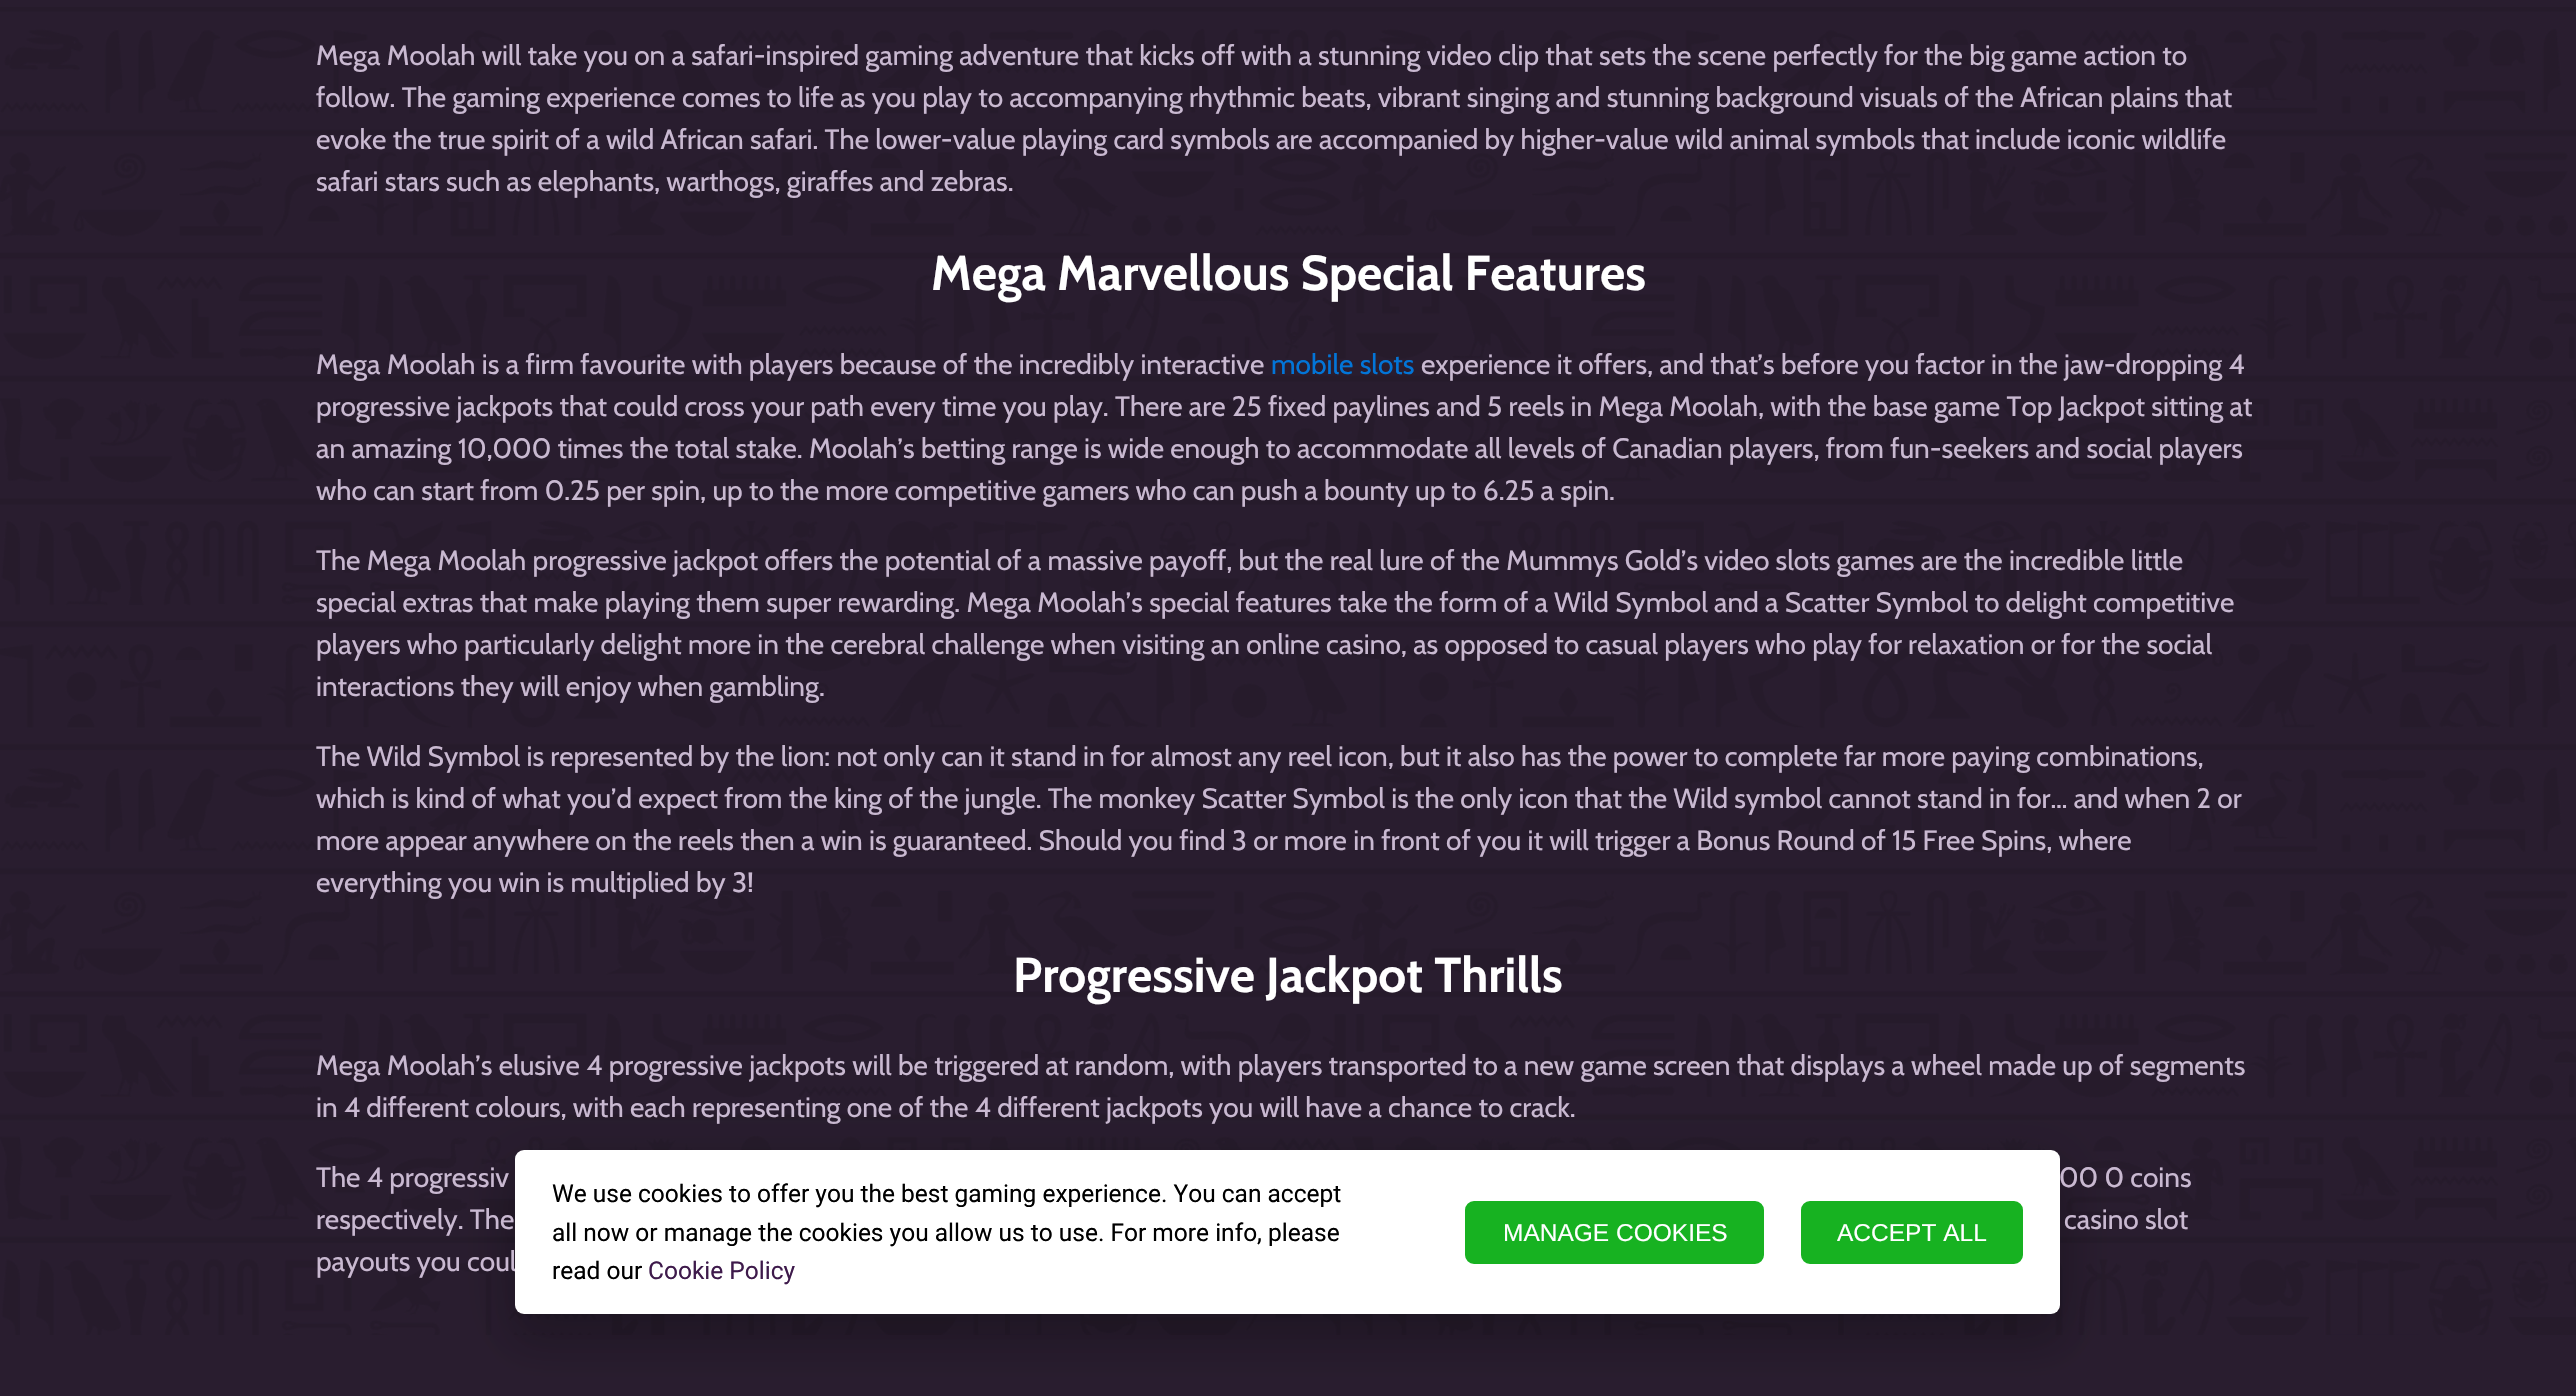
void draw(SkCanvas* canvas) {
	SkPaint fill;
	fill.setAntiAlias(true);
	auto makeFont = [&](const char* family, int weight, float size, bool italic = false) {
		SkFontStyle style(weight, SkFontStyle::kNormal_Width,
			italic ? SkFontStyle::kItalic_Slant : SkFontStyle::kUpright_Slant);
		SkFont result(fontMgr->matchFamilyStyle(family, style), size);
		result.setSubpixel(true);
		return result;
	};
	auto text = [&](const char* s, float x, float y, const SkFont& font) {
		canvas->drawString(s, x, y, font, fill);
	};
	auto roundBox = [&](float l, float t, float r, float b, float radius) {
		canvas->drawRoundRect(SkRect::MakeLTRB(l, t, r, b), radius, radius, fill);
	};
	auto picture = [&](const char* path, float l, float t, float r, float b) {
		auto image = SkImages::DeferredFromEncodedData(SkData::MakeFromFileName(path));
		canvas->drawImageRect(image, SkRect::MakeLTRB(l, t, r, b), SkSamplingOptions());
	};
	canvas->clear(0xFF291D2F);
	picture("image0.png", 0, 7, 2576, 1335);
	fill.setColor(0x1F000000);
	fill.setMaskFilter(SkMaskFilter::MakeBlur(kNormal_SkBlurStyle, 26));
	canvas->drawRoundRect(SkRect::MakeLTRB(506, 1152, 2069, 1334), 18, 18, fill);
	fill.setMaskFilter(nullptr);
	fill.setColor(0x24000000);
	fill.setMaskFilter(SkMaskFilter::MakeBlur(kNormal_SkBlurStyle, 21));
	canvas->drawRoundRect(SkRect::MakeLTRB(511, 1174, 2063, 1346), 12, 12, fill);
	fill.setMaskFilter(nullptr);
	auto font1 = makeFont("Cabin", 400, 28);
	fill.setColor(0xFFC9B9D1);
	text("Mega Moolah will take you on a safari-inspired gaming adventure that kicks off with a stunning video clip that sets the scene perfectly for the big game action to", 316, 65, font1);
	text("follow. The gaming experience comes to life as you play to accompanying rhythmic beats, vibrant singing and stunning background visuals of the African plains that", 316, 107, font1);
	text("evoke the true spirit of a wild African safari. The lower-value playing card symbols are accompanied by higher-value wild animal symbols that include iconic wildlife", 316, 149, font1);
	text("safari stars such as elephants, warthogs, giraffes and zebras.", 316, 191, font1);
	auto font2 = makeFont("Cabin", 700, 49);
	fill.setColor(0xFFFFFFFF);
	text("Mega Marvellous Special Features", 931, 290, font2);
	fill.setColor(0xFFC9B9D1);
	text("Mega Moolah is a firm favourite with players because of the incredibly interactive", 316, 374, font1);
	fill.setColor(0xFF0275D8);
	text("mobile slots", 1271, 374, font1);
	fill.setColor(0xFFC9B9D1);
	text("experience it offers, and that’s before you factor in the jaw-dropping 4", 1421, 374, font1);
	text("progressive jackpots that could cross your path every time you play. There are 25 fixed paylines and 5 reels in Mega Moolah, with the base game Top Jackpot sitting at", 316, 416, font1);
	text("an amazing 10,000 times the total stake. Moolah’s betting range is wide enough to accommodate all levels of Canadian players, from fun-seekers and social players", 316, 458, font1);
	text("who can start from 0.25 per spin, up to the more competitive gamers who can push a bounty up to 6.25 a spin.", 316, 500, font1);
	text("The Mega Moolah progressive jackpot offers the potential of a massive payoff, but the real lure of the Mummys Gold’s video slots games are the incredible little", 316, 570, font1);
	text("special extras that make playing them super rewarding. Mega Moolah’s special features take the form of a Wild Symbol and a Scatter Symbol to delight competitive", 316, 612, font1);
	text("players who particularly delight more in the cerebral challenge when visiting an online casino, as opposed to casual players who play for relaxation or for the social", 316, 654, font1);
	text("interactions they will enjoy when gambling.", 316, 696, font1);
	text("The Wild Symbol is represented by the lion: not only can it stand in for almost any reel icon, but it also has the power to complete far more paying combinations,", 316, 766, font1);
	text("which is kind of what you’d expect from the king of the jungle. The monkey Scatter Symbol is the only icon that the Wild symbol cannot stand in for… and when 2 or", 316, 808, font1);
	text("more appear anywhere on the reels then a win is guaranteed. Should you find 3 or more in front of you it will trigger a Bonus Round of 15 Free Spins, where", 316, 850, font1);
	text("everything you win is multiplied by 3!", 316, 892, font1);
	fill.setColor(0xFFFFFFFF);
	text("Progressive Jackpot Thrills", 1013, 992, font2);
	fill.setColor(0xFFC9B9D1);
	text("Mega Moolah’s elusive 4 progressive jackpots will be triggered at random, with players transported to a new game screen that displays a wheel made up of segments", 316, 1075, font1);
	text("in 4 different colours, with each representing one of the 4 different jackpots you will have a chance to crack.", 316, 1117, font1);
	text("The 4 progressiv", 316, 1187, font1);
	text("00 0 coins", 2059, 1187, font1);
	text("respectively. The", 316, 1229, font1);
	text("casino slot", 2064, 1229, font1);
	text("payouts you coul", 316, 1271, font1);
	fill.setColor(0xFFFFFFFF);
	roundBox(515, 1150, 2060, 1314, 9);
	auto font3 = makeFont("Roboto", 400, 24.5f);
	fill.setColor(0xFF000000);
	text("We use cookies to offer you the best gaming experience. You can accept", 552, 1202, font3);
	text("all now or manage the cookies you allow us to use. For more info, please", 552, 1241, font3);
	text("read our", 552, 1279, font3);
	fill.setColor(0xFF3E1A4B);
	text("Cookie Policy", 648, 1279, font3);
	fill.setColor(0xFF17B221);
	canvas->drawRoundRect(SkRect::MakeLTRB(1466, 1202, 1763, 1263), 8, 8, fill);
	fill.setStyle(SkPaint::kStroke_Style);
	fill.setStrokeWidth(2);
	canvas->drawRoundRect(SkRect::MakeLTRB(1466, 1202, 1763, 1263), 8, 8, fill);
	auto font4 = makeFont("Liberation Sans", 400, 24.5f);
	fill.setStyle(SkPaint::kFill_Style);
	fill.setColor(0xFFFFFFFF);
	text("MANAGE COOKIES", 1503, 1241, font4);
	fill.setColor(0xFF17B221);
	canvas->drawRoundRect(SkRect::MakeLTRB(1802, 1202, 2022, 1263), 8, 8, fill);
	fill.setStyle(SkPaint::kStroke_Style);
	canvas->drawRoundRect(SkRect::MakeLTRB(1802, 1202, 2022, 1263), 8, 8, fill);
	fill.setStyle(SkPaint::kFill_Style);
	fill.setColor(0xFFFFFFFF);
	text("ACCEPT ALL", 1837, 1241, font4);
}
